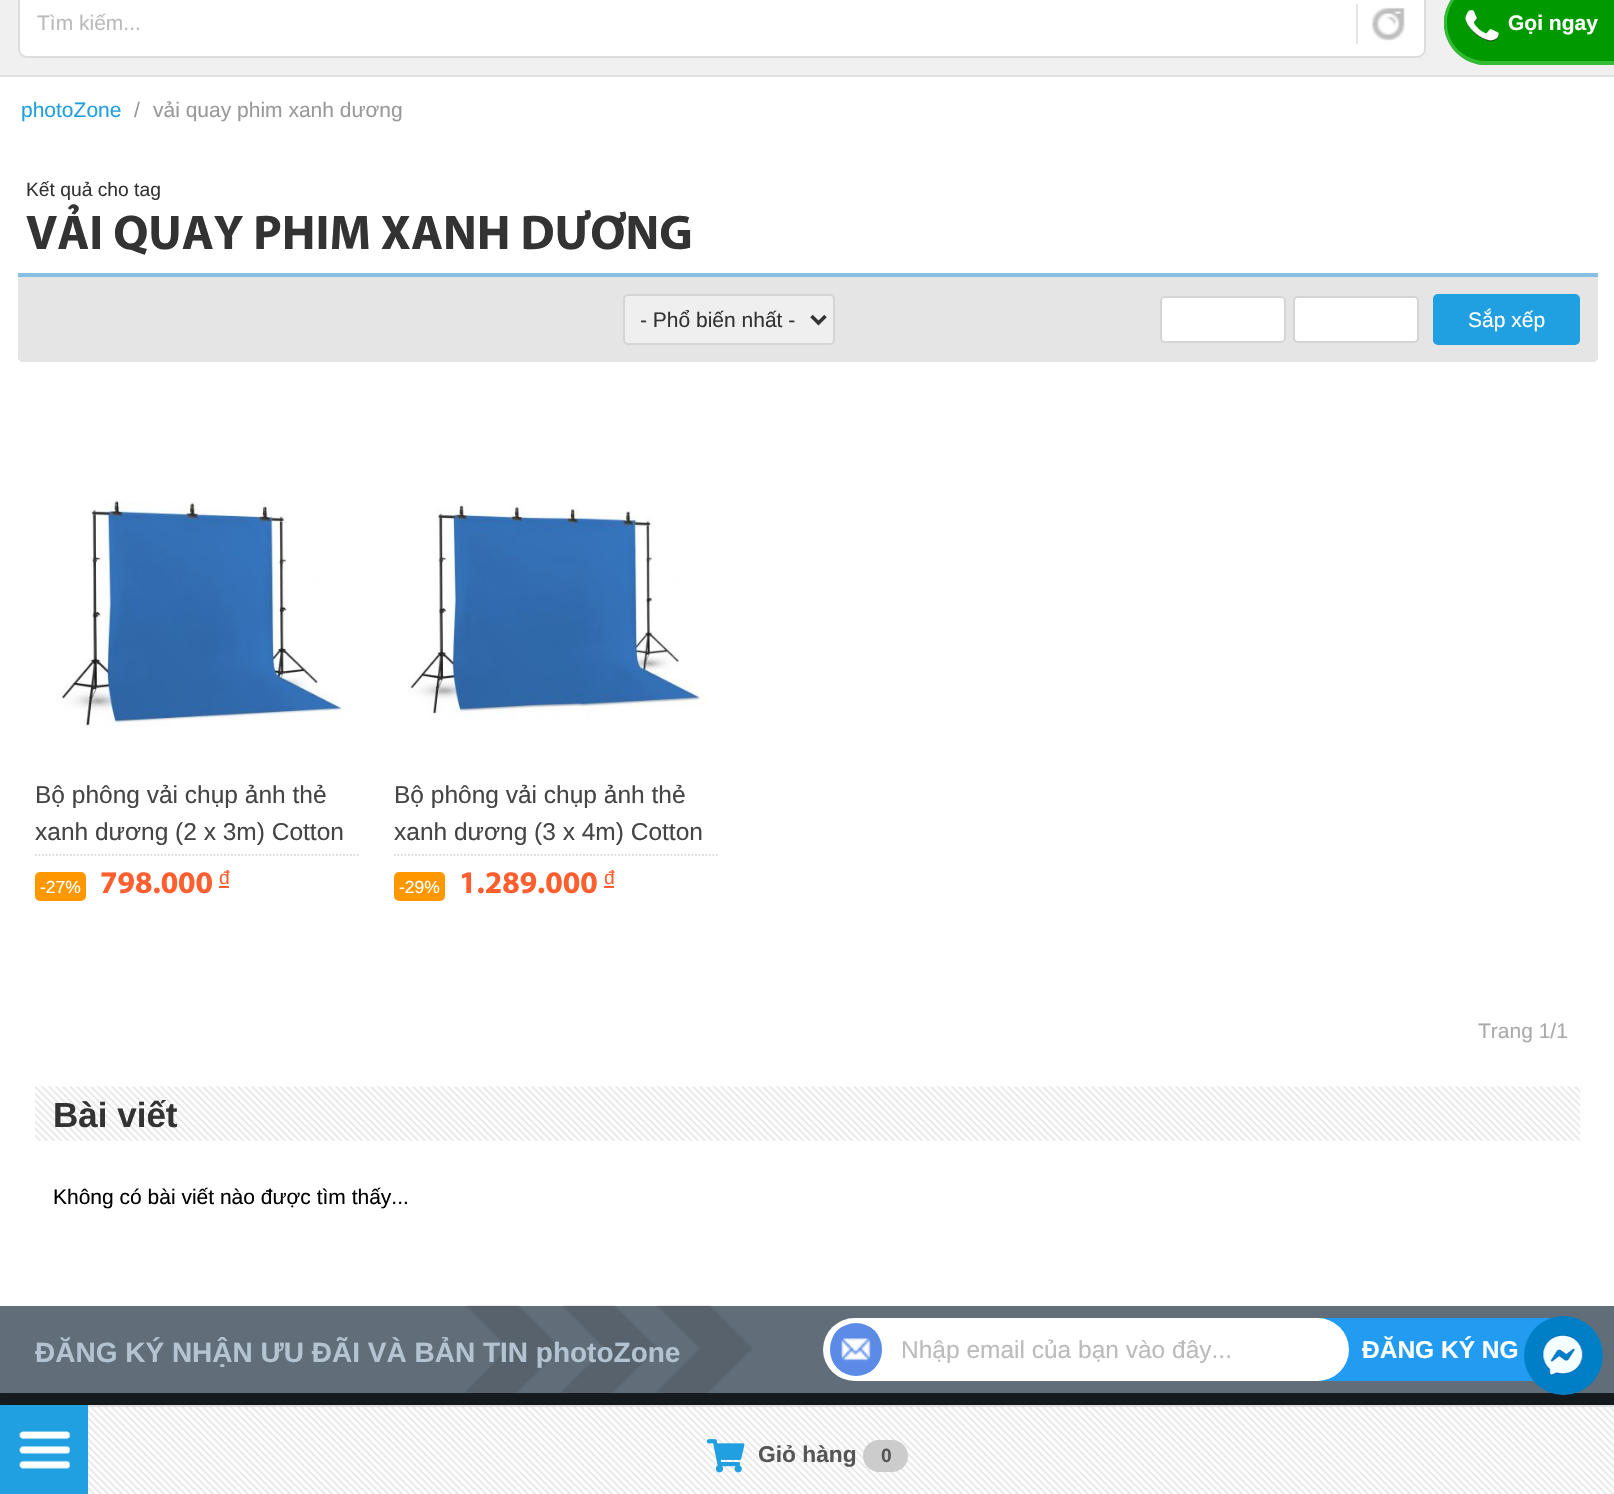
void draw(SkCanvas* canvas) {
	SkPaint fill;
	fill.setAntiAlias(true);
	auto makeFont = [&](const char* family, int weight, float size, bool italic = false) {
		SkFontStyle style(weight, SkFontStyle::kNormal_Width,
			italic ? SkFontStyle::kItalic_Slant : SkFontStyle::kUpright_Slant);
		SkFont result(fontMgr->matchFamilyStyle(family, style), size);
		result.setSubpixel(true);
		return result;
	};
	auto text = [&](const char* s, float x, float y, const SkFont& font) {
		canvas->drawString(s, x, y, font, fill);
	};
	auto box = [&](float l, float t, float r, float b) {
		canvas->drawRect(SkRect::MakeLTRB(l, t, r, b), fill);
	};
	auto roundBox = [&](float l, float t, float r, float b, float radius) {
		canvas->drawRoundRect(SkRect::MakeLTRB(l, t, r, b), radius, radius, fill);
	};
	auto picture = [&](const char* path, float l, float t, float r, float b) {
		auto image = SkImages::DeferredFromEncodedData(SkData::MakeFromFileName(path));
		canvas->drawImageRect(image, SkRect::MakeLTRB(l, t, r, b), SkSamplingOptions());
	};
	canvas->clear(0xFFFFFFFF);
	fill.setColor(0xFFF0F0F0);
	box(0, 0, 1614, 75);
	fill.setColor(0xFFE0E0E0);
	box(0, 75, 1614, 77);
	fill.setColor(0xFFFFFFFF);
	canvas->drawRoundRect(SkRect::MakeLTRB(19, -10, 1425, 57), 8, 8, fill);
	fill.setStyle(SkPaint::kStroke_Style);
	fill.setStrokeWidth(2);
	fill.setColor(0xFFDDDDDD);
	canvas->drawRoundRect(SkRect::MakeLTRB(19, -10, 1425, 57), 8, 8, fill);
	fill.setStyle(SkPaint::kFill_Style);
	fill.setColor(0xFFE5E5E5);
	box(1356, 4, 1358, 44);
	picture("image0.png", 1371, 7, 1405, 41);
	fill.setColor(0xFF161B1F);
	box(0, 1393, 1614, 1405);
	fill.setColor(0xFF616D78);
	box(0, 1306, 1614, 1393);
	picture("image8.png", 465, 1305, 752, 1393);
	fill.setColor(0xFF229CF1);
	canvas->drawPath(SkPathBuilder().moveTo(1300, 1318).lineTo(1566.5f, 1318).cubicTo(1584, 1318, 1598, 1332, 1598, 1349.5f).cubicTo(1598, 1367, 1584, 1381, 1566.5f, 1381).lineTo(1300, 1381).close().detach(), fill);
	fill.setColor(0xFF007EC6);
	canvas->drawCircle(1563.5f, 1355.5f, 39.5f, fill);
	fill.setColor(0x26000000);
	fill.setMaskFilter(SkMaskFilter::MakeBlur(kNormal_SkBlurStyle, 7));
	canvas->drawRect(SkRect::MakeLTRB(0, 1405, 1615, 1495), fill);
	fill.setMaskFilter(nullptr);
	fill.setColor(0xFFFFFFFF);
	box(88, 1407, 1614, 1494);
	picture("image1.png", 88, 1407, 1614, 1494);
	fill.setColor(0xFFE0E0E0);
	box(88, 1405, 1614, 1407);
	picture("image2.png", 707, 1439, 745, 1473);
	fill.setColor(0xFFCCCCCC);
	roundBox(863, 1440, 908, 1472, 16);
	fill.setColor(0xFF009900);
	canvas->drawPath(SkPathBuilder().moveTo(1486, -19).lineTo(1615, -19).lineTo(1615, 65).lineTo(1486, 65).cubicTo(1463, 65, 1444, 46, 1444, 23).cubicTo(1444, 0, 1463, -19, 1486, -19).close().detach(), fill);
	picture("image3.png", 1465, 10, 1499, 42);
	fill.setColor(0xFF33BB33);
	canvas->drawPath(SkPathBuilder(SkPathFillType::kEvenOdd).moveTo(1486, -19).lineTo(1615, -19).lineTo(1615, 65).lineTo(1486, 65).cubicTo(1463, 65, 1444, 46, 1444, 23).cubicTo(1444, 0, 1463, -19, 1486, -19).close().moveTo(1486, -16).lineTo(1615, -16).lineTo(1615, 61).lineTo(1486, 61).cubicTo(1464, 61, 1447, 44, 1447, 23).cubicTo(1447, 1, 1464, -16, 1486, -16).close().detach(), fill);
	fill.setColor(0xFF209FE1);
	box(0, 1405, 88, 1494);
	picture("image4.png", 19, 1431, 70, 1469);
	fill.setColor(0xFF87BEE4);
	box(18, 273, 1598, 277);
	fill.setColor(0xFFE5E5E5);
	canvas->drawPath(SkPathBuilder().moveTo(18, 277).lineTo(1598, 277).lineTo(1598, 357).cubicTo(1598, 360, 1596, 362, 1593, 362).lineTo(23, 362).cubicTo(20, 362, 18, 360, 18, 357).close().detach(), fill);
	fill.setColor(0xFFEFEFEF);
	canvas->drawRoundRect(SkRect::MakeLTRB(624, 295, 834, 344), 4, 4, fill);
	fill.setStyle(SkPaint::kStroke_Style);
	fill.setColor(0xFFD5D5D5);
	canvas->drawRoundRect(SkRect::MakeLTRB(624, 295, 834, 344), 4, 4, fill);
	fill.setStrokeWidth(3.5f);
	fill.setColor(0xFF333333);
	canvas->drawPath(SkPathBuilder().moveTo(811.5f, 316).lineTo(818.5f, 323).lineTo(825.5f, 316).detach(), fill);
	fill.setStyle(SkPaint::kFill_Style);
	fill.setColor(0xFFFFFFFF);
	canvas->drawRoundRect(SkRect::MakeLTRB(1161, 297, 1285, 342), 4, 4, fill);
	fill.setStyle(SkPaint::kStroke_Style);
	fill.setStrokeWidth(2);
	fill.setColor(0xFFD5D5D5);
	canvas->drawRoundRect(SkRect::MakeLTRB(1161, 297, 1285, 342), 4, 4, fill);
	fill.setStyle(SkPaint::kFill_Style);
	fill.setColor(0xFFFFFFFF);
	canvas->drawRoundRect(SkRect::MakeLTRB(1294, 297, 1418, 342), 4, 4, fill);
	fill.setStyle(SkPaint::kStroke_Style);
	fill.setColor(0xFFD5D5D5);
	canvas->drawRoundRect(SkRect::MakeLTRB(1294, 297, 1418, 342), 4, 4, fill);
	fill.setStyle(SkPaint::kFill_Style);
	fill.setColor(0xFF209FE1);
	roundBox(1433, 294, 1580, 345, 5);
	picture("image5.png", 56, 500, 348, 727);
	fill.setStyle(SkPaint::kStroke_Style);
	fill.setStrokeWidth(1.8f);
	fill.setColor(0xFFDDDDDD);
	fill.setPathEffect(SkDashPathEffect::Make({{1.75f, 1.75f}}, 0));
	canvas->drawPath(SkPathBuilder().moveTo(35, 855).lineTo(359, 855).detach(), fill);
	fill.setPathEffect(nullptr);
	fill.setStyle(SkPaint::kFill_Style);
	fill.setColor(0xFFFF9800);
	roundBox(35, 872, 86, 901, 5);
	fill.setColor(0xFFFF5F2E);
	box(219, 886, 229, 888);
	picture("image6.png", 408, 503, 707, 720);
	fill.setStyle(SkPaint::kStroke_Style);
	fill.setColor(0xFFDDDDDD);
	fill.setPathEffect(SkDashPathEffect::Make({{1.75f, 1.75f}}, 0));
	canvas->drawPath(SkPathBuilder().moveTo(394, 855).lineTo(717.5f, 855).detach(), fill);
	fill.setPathEffect(nullptr);
	fill.setStyle(SkPaint::kFill_Style);
	fill.setColor(0xFFFF9800);
	roundBox(394, 872, 445, 901, 5);
	fill.setColor(0xFFFF5F2E);
	box(604, 886, 614, 888);
	picture("image7.png", 35, 1086, 1581, 1141);
	fill.setColor(0xFFFFFFFF);
	roundBox(823, 1318, 1349, 1381, 31.5f);
	fill.setColor(0xFF5C8BE7);
	roundBox(830, 1323, 882, 1376, 26);
	picture("image9.png", 832, 1325, 879, 1371);
	picture("image10.png", 1542, 1335, 1583, 1376);
	auto font1 = makeFont("Liberation Sans", 400, 21);
	fill.setColor(0xFFBBBBBB);
	text("Tìm kiếm...", 37, 30, font1);
	auto font2 = makeFont("Liberation Sans", 700, 22.75f);
	fill.setColor(0xFF555555);
	text("Giỏ hàng", 758, 1462, font2);
	auto font3 = makeFont("Liberation Sans", 700, 19.25f);
	text("0", 881, 1462, font3);
	auto font4 = makeFont("Liberation Sans", 700, 21);
	fill.setColor(0xFFFFFFFF);
	text("Gọi ngay", 1508, 30, font4);
	fill.setColor(0xFF209FE1);
	text("photoZone", 21, 117, font1);
	fill.setColor(0xFF999999);
	text("/", 134, 117, font1);
	text("vải quay phim xanh dương", 153, 117, font1);
	auto font5 = makeFont("Liberation Sans", 400, 19.25f);
	fill.setColor(0xFF333333);
	text("Kết quả cho tag", 26, 196, font5);
	auto font6 = makeFont("Myriad", 700, 49);
	text("VẢI QUAY PHIM XANH DƯƠNG", 26, 249, font6);
	canvas->save();
	canvas->clipRect(SkRect::MakeLTRB(641, 306, 796, 334));
	text("- Phổ biến nhất -", 640, 327, font1);
	canvas->restore();
	fill.setColor(0xFFFFFFFF);
	text("Sắp xếp", 1468, 327, font1);
	auto font7 = makeFont("Liberation Sans", 400, 24.5f);
	fill.setColor(0xFF454545);
	text("Bộ phông vải chụp ảnh thẻ", 35, 803, font7);
	text("xanh dương (2 x 3m) Cotton", 35, 840, font7);
	auto font8 = makeFont("Liberation Sans", 400, 17.5f);
	fill.setColor(0xFFFFFFFF);
	text("-27%", 40, 893, font8);
	auto font9 = makeFont("Myriad", 700, 31.5f);
	fill.setColor(0xFFFF5F2E);
	text("798.000", 100, 893, font9);
	text("đ", 219, 884, font5);
	fill.setColor(0xFF454545);
	text("Bộ phông vải chụp ảnh thẻ", 394, 803, font7);
	text("xanh dương (3 x 4m) Cotton", 394, 840, font7);
	fill.setColor(0xFFFFFFFF);
	text("-29%", 399, 893, font8);
	fill.setColor(0xFFFF5F2E);
	text("1.289.000", 459, 893, font9);
	text("đ", 604, 884, font5);
	fill.setColor(0xFFAAAAAA);
	text("Trang 1/1", 1478, 1038, font1);
	auto font10 = makeFont("Liberation Sans", 700, 35);
	fill.setColor(0xFF333333);
	text("Bài viết", 53, 1127, font10);
	fill.setColor(0xFF000000);
	text("Không có bài viết nào được tìm thấy...", 53, 1204, font1);
	auto font11 = makeFont("Liberation Sans", 700, 28);
	fill.setColor(0xFFB3C3D2);
	text("ĐĂNG KÝ NHẬN ƯU ĐÃI VÀ BẢN TIN photoZone", 35, 1362, font11);
	fill.setColor(0xFFBBBBBB);
	text("Nhập email của bạn vào đây...", 901, 1358, font7);
	auto font12 = makeFont("Liberation Sans", 700, 24.5f);
	fill.setColor(0xFFFFFFFF);
	text("ĐĂNG KÝ NG", 1362, 1358, font12);
}
